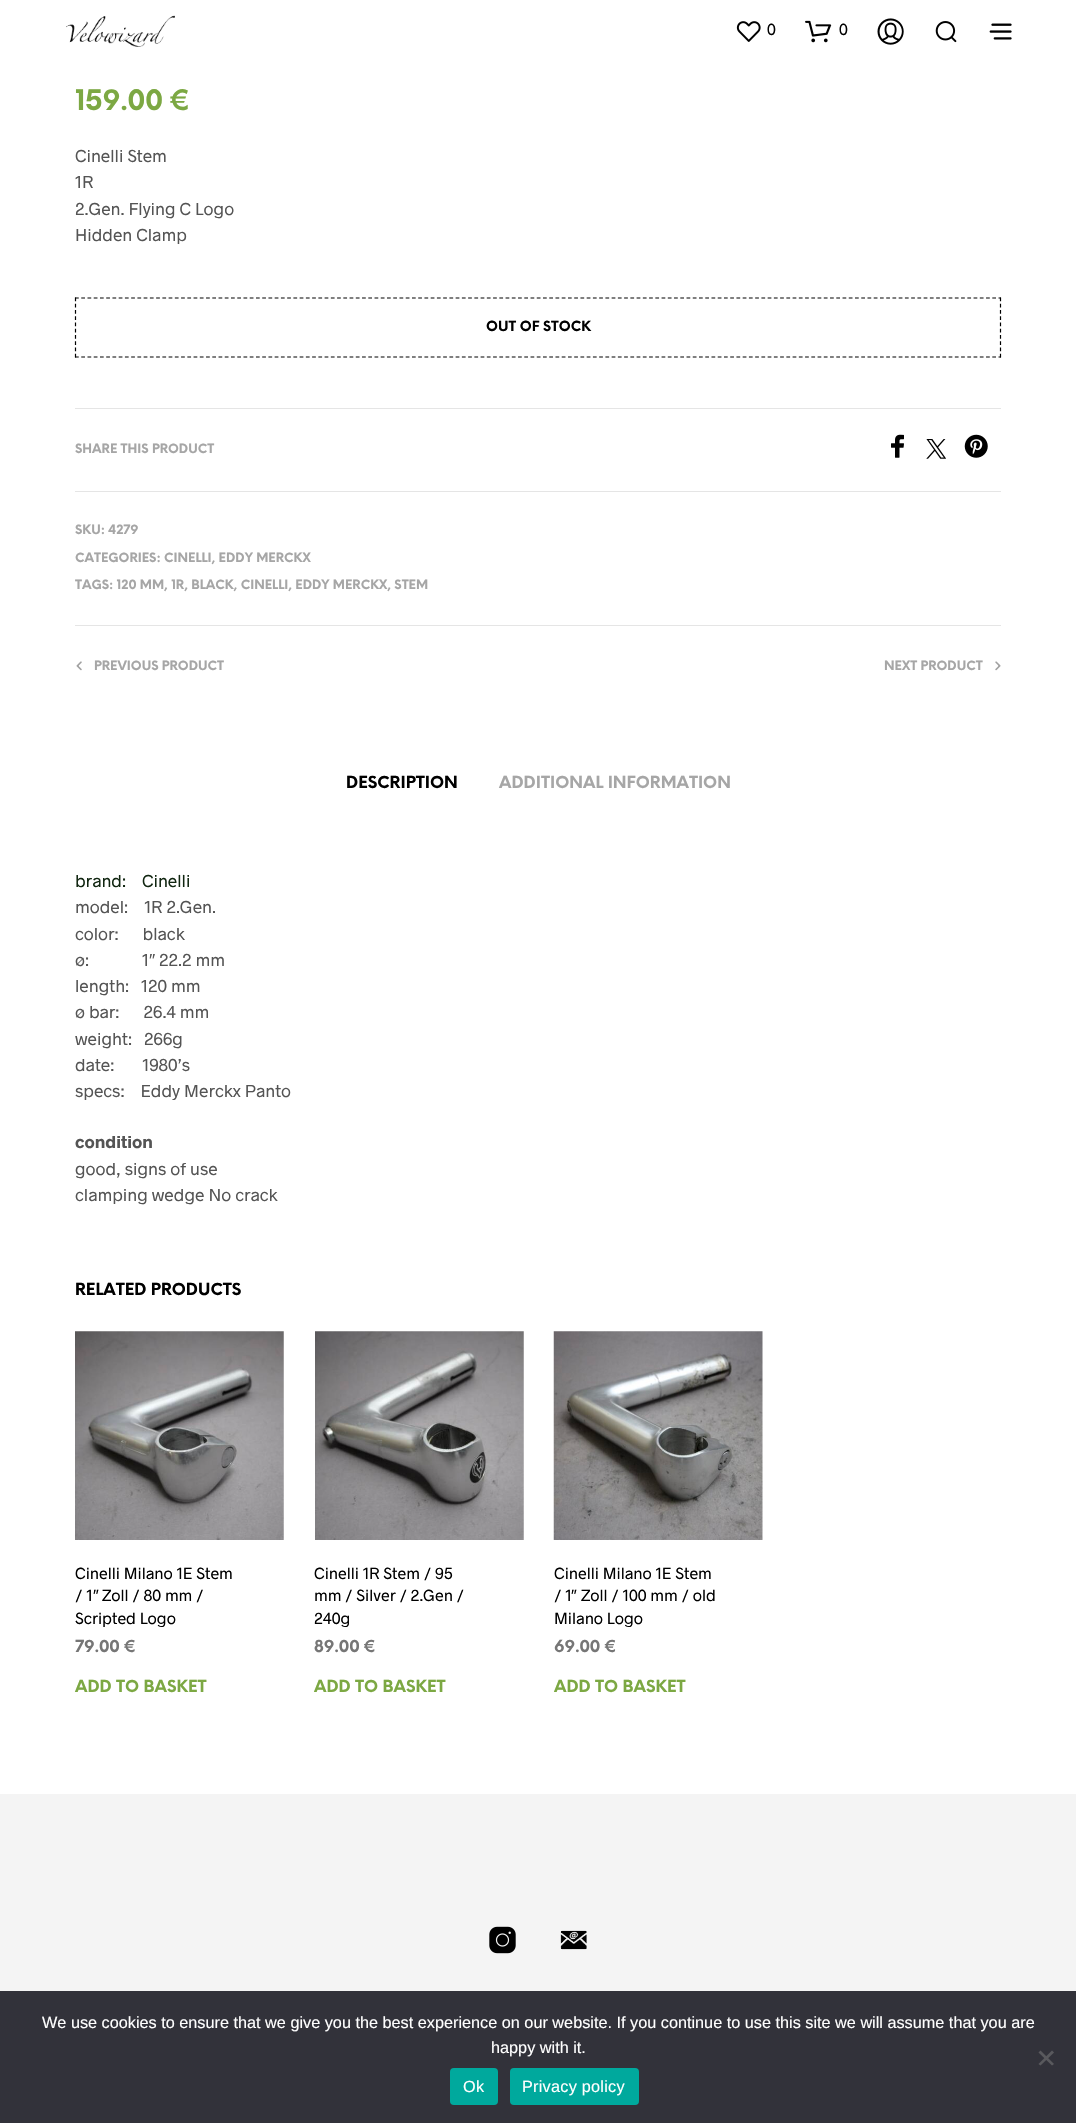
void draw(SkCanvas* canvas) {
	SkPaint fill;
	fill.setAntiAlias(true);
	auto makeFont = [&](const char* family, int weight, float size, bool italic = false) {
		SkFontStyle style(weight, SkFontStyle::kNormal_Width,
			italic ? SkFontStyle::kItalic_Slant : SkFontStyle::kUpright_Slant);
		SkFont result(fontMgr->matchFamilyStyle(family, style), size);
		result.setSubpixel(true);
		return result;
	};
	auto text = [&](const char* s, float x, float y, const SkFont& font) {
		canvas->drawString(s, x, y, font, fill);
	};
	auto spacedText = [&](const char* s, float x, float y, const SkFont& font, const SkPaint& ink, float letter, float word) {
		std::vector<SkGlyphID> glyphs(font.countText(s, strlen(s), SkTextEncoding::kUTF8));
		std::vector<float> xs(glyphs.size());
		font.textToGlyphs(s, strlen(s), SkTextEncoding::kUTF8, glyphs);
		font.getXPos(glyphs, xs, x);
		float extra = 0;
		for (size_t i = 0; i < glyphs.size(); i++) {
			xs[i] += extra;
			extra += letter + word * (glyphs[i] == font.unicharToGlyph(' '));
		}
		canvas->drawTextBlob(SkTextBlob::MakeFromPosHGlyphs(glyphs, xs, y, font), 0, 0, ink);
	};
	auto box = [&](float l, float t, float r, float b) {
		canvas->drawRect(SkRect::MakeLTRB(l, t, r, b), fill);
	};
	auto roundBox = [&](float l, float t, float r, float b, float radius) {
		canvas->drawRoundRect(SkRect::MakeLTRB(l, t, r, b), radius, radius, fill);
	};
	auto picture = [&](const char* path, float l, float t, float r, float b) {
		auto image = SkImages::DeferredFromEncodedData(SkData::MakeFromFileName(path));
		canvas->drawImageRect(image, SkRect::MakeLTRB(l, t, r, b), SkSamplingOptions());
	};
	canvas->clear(0xFFFFFFFF);
	picture("image0.png", 66, 15, 175, 47);
	picture("image1.png", 736, 21, 761, 42);
	picture("image2.png", 805, 20, 832, 43);
	picture("image3.png", 877, 18, 904, 45);
	picture("image4.png", 935, 21, 957, 43);
	picture("image5.png", 989, 23, 1012, 40);
	fill.setStyle(SkPaint::kStroke_Style);
	fill.setStrokeWidth(1.2f);
	fill.setColor(0xFF000000);
	fill.setPathEffect(SkDashPathEffect::Make({{3.75f, 2.49f}}, 0));
	canvas->drawPath(SkPathBuilder().moveTo(75, 298).lineTo(1001, 298).detach(), fill);
	fill.setPathEffect(nullptr);
	fill.setPathEffect(SkDashPathEffect::Make({{3.75f, 2.5f}}, 0));
	canvas->drawPath(SkPathBuilder().moveTo(1000.5f, 297.5f).lineTo(1000.5f, 357.5f).detach(), fill);
	fill.setPathEffect(nullptr);
	fill.setPathEffect(SkDashPathEffect::Make({{3.75f, 2.49f}}, 0));
	canvas->drawPath(SkPathBuilder().moveTo(75, 357).lineTo(1001, 357).detach(), fill);
	fill.setPathEffect(nullptr);
	fill.setPathEffect(SkDashPathEffect::Make({{3.75f, 2.5f}}, 0));
	canvas->drawPath(SkPathBuilder().moveTo(75.5f, 297.5f).lineTo(75.5f, 357.5f).detach(), fill);
	fill.setPathEffect(nullptr);
	fill.setStyle(SkPaint::kFill_Style);
	fill.setColor(0xFFE5E5E5);
	box(75, 408, 1001, 409);
	picture("image6.png", 891, 434, 904, 458);
	picture("image7.png", 926, 439, 946, 459);
	picture("image8.png", 964, 434, 988, 458);
	box(75, 491, 1001, 492);
	box(75, 625, 1001, 626);
	picture("image9.png", 76, 661, 82, 671);
	picture("image10.png", 995, 661, 1001, 671);
	picture("image11.png", 75, 1331, 284, 1540);
	picture("image12.png", 315, 1331, 524, 1540);
	picture("image13.png", 553, 1331, 763, 1540);
	fill.setColor(0xFFF4F4F4);
	box(0, 1794, 1076, 1991);
	picture("image14.png", 489, 1926, 516, 1954);
	picture("image15.png", 560, 1930, 587, 1950);
	fill.setColor(0xFF32323A);
	box(0, 1991, 1076, 2123);
	fill.setColor(0xFF59595D);
	canvas->drawPath(SkPathBuilder().moveTo(1052, 2050.5f).lineTo(1054, 2052.5f).lineTo(1040.5f, 2065.5f).lineTo(1038.5f, 2064).close().detach(), fill);
	canvas->drawPath(SkPathBuilder().moveTo(1038.5f, 2052.5f).lineTo(1040.5f, 2050.5f).lineTo(1054, 2064).lineTo(1052, 2065.5f).close().detach(), fill);
	fill.setColor(0xFF00A99D);
	roundBox(450, 2068, 498, 2105, 4);
	roundBox(510, 2068, 639, 2105, 4);
	auto font1 = makeFont("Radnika", 400, 16.25f);
	fill.setColor(0xFF000000);
	text("0", 767, 35, font1);
	text("0", 839, 35, font1);
	auto font2 = makeFont("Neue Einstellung", 700, 27.5f);
	fill.setColor(0xFF7CA843);
	text("159.00 €", 75, 110, font2);
	auto font3 = makeFont("Radnika", 400, 17.5f);
	fill.setColor(0xFF545454);
	text("Cinelli Stem", 75, 162, font3);
	text("1R", 75, 188, font3);
	text("2.Gen. Flying C Logo", 75, 215, font3);
	text("Hidden Clamp", 75, 241, font3);
	auto font4 = makeFont("Neue Einstellung", 700, 13.75f);
	fill.setColor(0xFF000000);
	text("OUT OF STOCK", 486, 331, font4);
	auto font5 = makeFont("Neue Einstellung", 700, 12.5f);
	fill.setColor(0xFFA6A6A6);
	text("SHARE THIS PRODUCT", 75, 453, font5);
	text("SKU: 4279", 75, 534, font5);
	text("CATEGORIES: CINELLI, EDDY MERCKX", 75, 562, font5);
	text("TAGS: 120 MM, 1R, BLACK, CINELLI, EDDY MERCKX, STEM", 75, 589, font5);
	text("PREVIOUS PRODUCT", 94, 670, font5);
	text("NEXT PRODUCT", 884, 670, font5);
	auto font6 = makeFont("Neue Einstellung", 700, 16.25f);
	fill.setColor(0xFF000000);
	text("DESCRIPTION", 346, 788, font6);
	fill.setColor(0xFFA6A6A6);
	text("ADDITIONAL INFORMATION", 499, 788, font6);
	fill.setColor(0xFF112611);
	text("brand:    Cinelli", 75, 887, font3);
	fill.setColor(0xFF545454);
	text("model:    1R 2.Gen.", 75, 913, font3);
	text("color:      black", 75, 940, font3);
	text("ø:", 75, 966, font3);
	text("1", 142, 966, font3);
	auto font7 = makeFont("Liberation Sans", 400, 17.5f);
	text("″", 149, 966, font7);
	text("22.2 mm", 159, 966, font3);
	text("length:   120 mm", 75, 992, font3);
	text("ø bar:      26.4 mm", 75, 1018, font3);
	text("weight:", 75, 1045, font3);
	text("266g", 144, 1045, font3);
	text("date:       1980’s", 75, 1071, font3);
	text("specs:    Eddy Merckx Panto", 75, 1097, font3);
	auto font8 = makeFont("Radnika", 700, 17.5f);
	text("condition", 75, 1148, font8);
	text("good, signs of use", 75, 1175, font3);
	text("clamping wedge No crack", 75, 1201, font3);
	fill.setColor(0xFF000000);
	text("RELATED PRODUCTS", 75, 1295, font6);
	text("Cinelli Milano 1E Stem", 75, 1579, font1);
	text("/ 1", 75, 1601, font1);
	auto font9 = makeFont("Liberation Sans", 400, 16.25f);
	text("″", 93, 1601, font9);
	text("Zoll / 80 mm /", 102, 1601, font1);
	text("Scripted Logo", 75, 1624, font1);
	fill.setColor(0xFF767676);
	text("79.00 €", 75, 1652, font6);
	fill.setColor(0xFF7CA843);
	text("ADD TO BASKET", 75, 1692, font6);
	fill.setColor(0xFF000000);
	text("Cinelli 1R Stem / 95", 314, 1579, font1);
	text("mm / Silver / 2.Gen /", 314, 1601, font1);
	text("240g", 314, 1624, font1);
	fill.setColor(0xFF767676);
	text("89.00 €", 314, 1652, font6);
	fill.setColor(0xFF7CA843);
	text("ADD TO BASKET", 314, 1692, font6);
	fill.setColor(0xFF000000);
	text("Cinelli Milano 1E Stem", 554, 1579, font1);
	text("/ 1", 554, 1601, font1);
	text("″", 571, 1601, font9);
	text("Zoll / 100 mm / old", 581, 1601, font1);
	text("Milano Logo", 554, 1624, font1);
	fill.setColor(0xFF767676);
	text("69.00 €", 554, 1652, font6);
	fill.setColor(0xFF7CA843);
	text("ADD TO BASKET", 554, 1692, font6);
	fill.setColor(0xFFFFFFFF);
	text("We use cookies to ensure that we give you the best experience on our website. If you continue to use this site we will assume that you are", 42, 2028, font9);
	text("happy with it.", 491, 2053, font9);
	spacedText("Ok", 463, 2092, font9, fill, 0.25f, 0);
	spacedText("Privacy policy", 522, 2092, font9, fill, 0.25f, 0);
}
